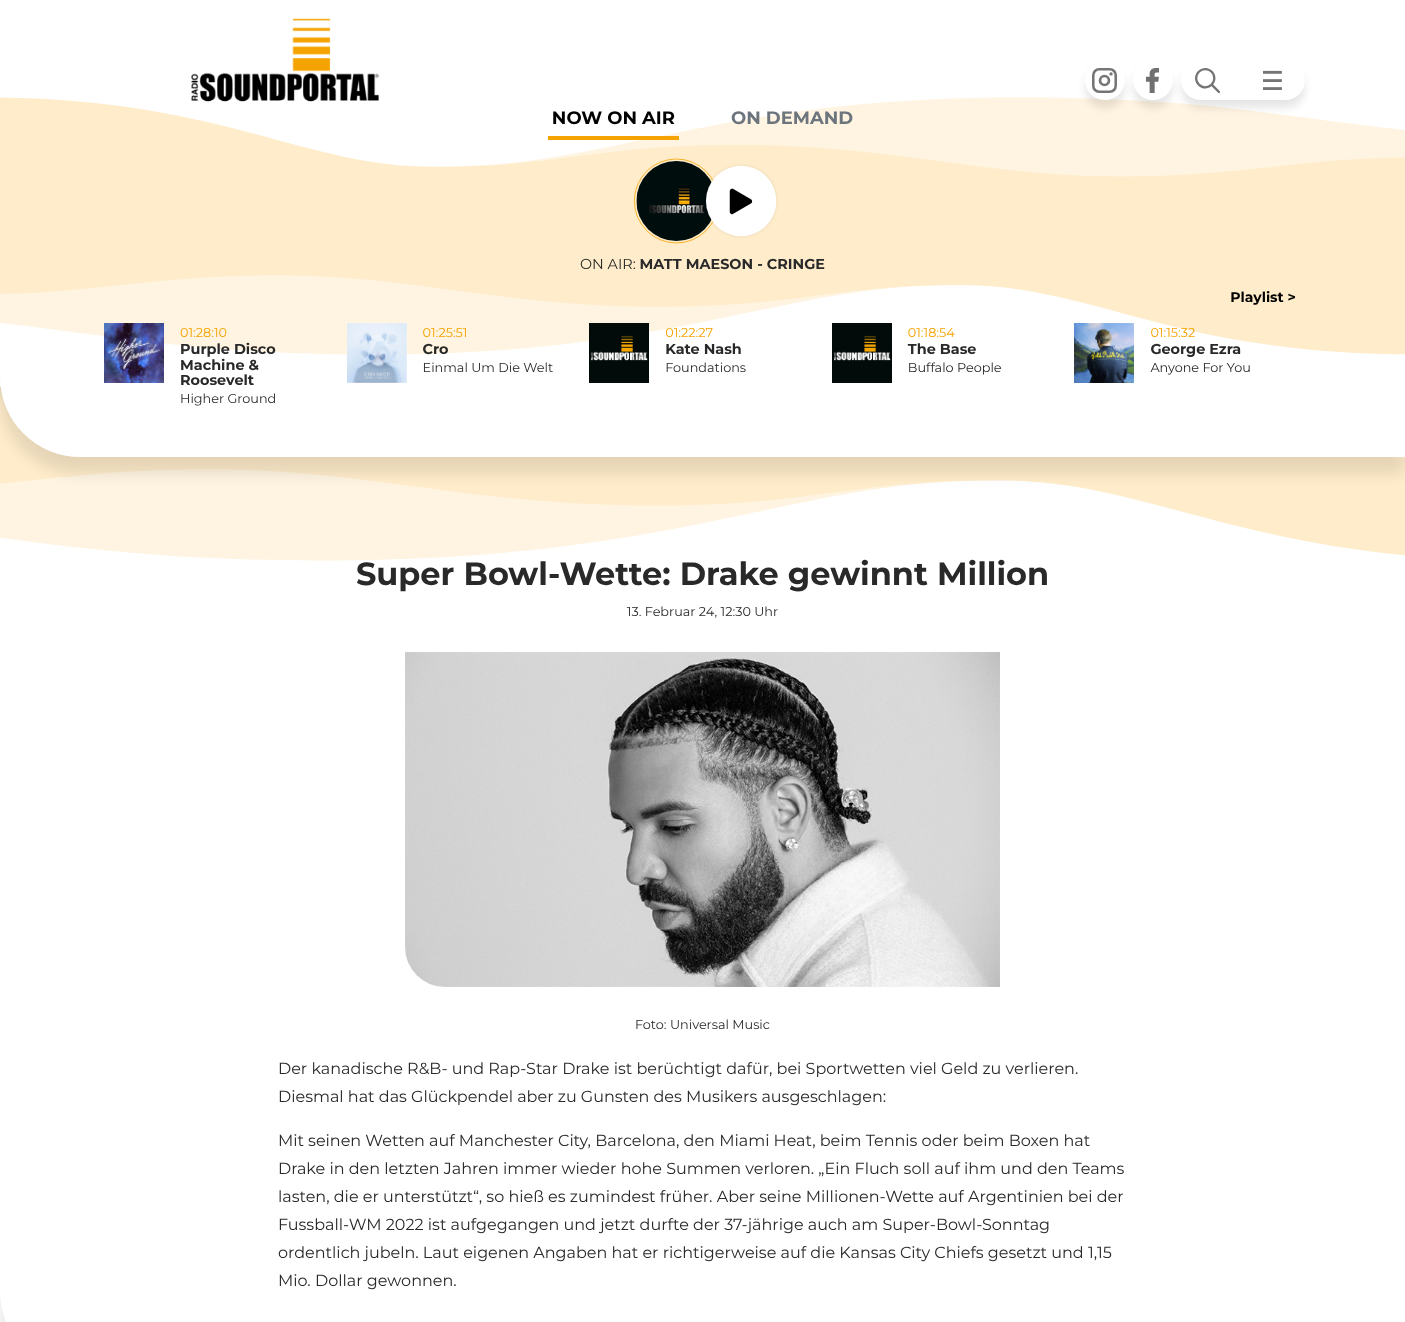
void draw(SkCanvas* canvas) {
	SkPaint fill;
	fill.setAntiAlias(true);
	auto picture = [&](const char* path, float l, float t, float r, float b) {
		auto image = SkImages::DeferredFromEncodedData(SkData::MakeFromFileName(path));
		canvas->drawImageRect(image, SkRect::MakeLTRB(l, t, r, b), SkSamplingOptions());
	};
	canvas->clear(0xFFFFFFFF);
	picture("image0.png", 0, 18, 1405, 1322);
}
